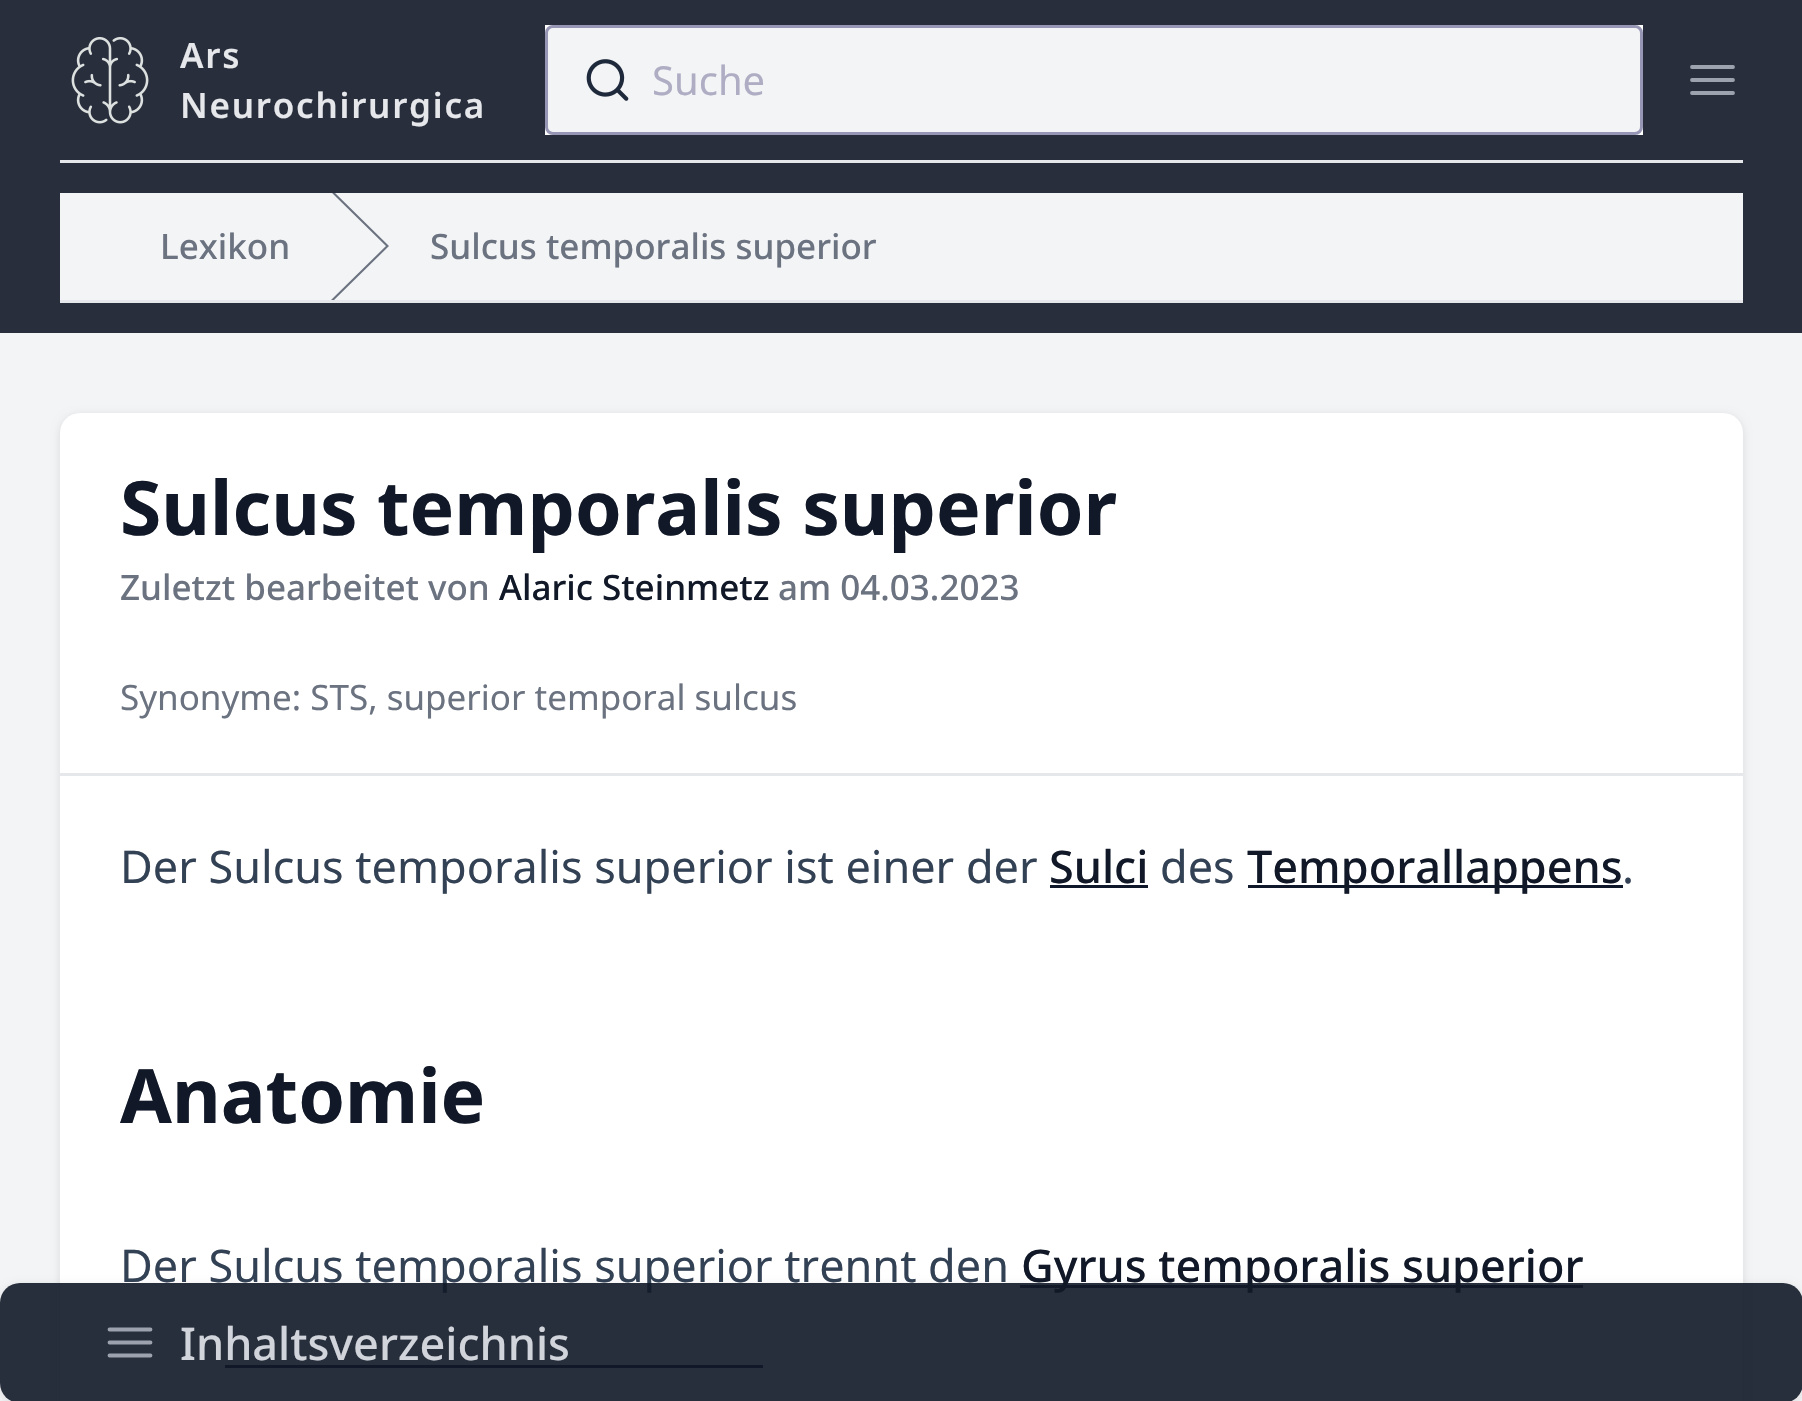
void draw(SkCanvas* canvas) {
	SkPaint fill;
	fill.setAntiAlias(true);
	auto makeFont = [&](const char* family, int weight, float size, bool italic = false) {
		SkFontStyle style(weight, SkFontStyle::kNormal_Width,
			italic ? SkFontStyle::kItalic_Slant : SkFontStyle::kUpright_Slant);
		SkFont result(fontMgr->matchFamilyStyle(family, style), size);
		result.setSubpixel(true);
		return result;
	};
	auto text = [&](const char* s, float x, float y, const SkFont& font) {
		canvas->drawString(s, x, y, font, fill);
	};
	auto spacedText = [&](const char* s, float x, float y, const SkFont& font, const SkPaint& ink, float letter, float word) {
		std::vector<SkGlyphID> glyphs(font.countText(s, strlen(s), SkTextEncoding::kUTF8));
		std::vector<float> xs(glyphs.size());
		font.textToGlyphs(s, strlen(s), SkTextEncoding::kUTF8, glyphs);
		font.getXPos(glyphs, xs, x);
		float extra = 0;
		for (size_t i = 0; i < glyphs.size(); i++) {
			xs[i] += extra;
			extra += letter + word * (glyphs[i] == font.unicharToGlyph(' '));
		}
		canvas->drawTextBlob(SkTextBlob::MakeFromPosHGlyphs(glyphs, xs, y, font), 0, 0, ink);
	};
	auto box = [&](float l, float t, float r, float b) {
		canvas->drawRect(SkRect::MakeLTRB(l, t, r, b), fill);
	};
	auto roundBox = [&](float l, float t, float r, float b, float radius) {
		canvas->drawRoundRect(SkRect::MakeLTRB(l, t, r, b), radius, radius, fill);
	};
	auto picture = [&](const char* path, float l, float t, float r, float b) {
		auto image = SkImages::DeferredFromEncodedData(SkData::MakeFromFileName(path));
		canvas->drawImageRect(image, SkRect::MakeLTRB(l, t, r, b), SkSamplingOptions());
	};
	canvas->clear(0xFFF3F4F6);
	fill.setColor(0xFF282E3C);
	box(0, 0, 1802, 333);
	picture("image0.png", 71, 37, 149, 124);
	fill.setColor(0xFFFFFFFF);
	box(545, 25, 1643, 135);
	fill.setColor(0xFFF3F4F6);
	roundBox(545, 25, 1643, 135, 8);
	fill.setStyle(SkPaint::kStroke_Style);
	fill.setStrokeWidth(3);
	fill.setColor(0xCC807EA3);
	canvas->drawRoundRect(SkRect::MakeLTRB(546.5f, 26.5f, 1641.5f, 133.5f), 6.5f, 6.5f, fill);
	picture("image1.png", 586, 59, 629, 101);
	fill.setStrokeWidth(3.8f);
	fill.setStrokeCap(SkPaint::kRound_Cap);
	fill.setStrokeJoin(SkPaint::kRound_Join);
	fill.setColor(0xFF9CA3AF);
	canvas->drawPath(SkPathBuilder().moveTo(1692, 67).lineTo(1733, 67).moveTo(1692, 80).lineTo(1733, 80).moveTo(1692, 93).lineTo(1733, 93).detach(), fill);
	fill.setStyle(SkPaint::kFill_Style);
	fill.setColor(0xFFE5E7EB);
	box(60, 160, 1743, 163);
	fill.setColor(0xFFF3F4F6);
	box(60, 193, 1743, 300);
	fill.setColor(0xFFE5E7EB);
	box(60, 300, 1743, 303);
	canvas->save();
	canvas->clipRect(SkRect::MakeLTRB(330, 193, 390, 300));
	fill.setColor(0xFF6B7280);
	canvas->drawPath(SkPathBuilder().moveTo(331, 192).lineTo(386, 246).lineTo(331, 300).lineTo(334, 300).lineTo(389, 246).lineTo(334, 192).close().detach(), fill);
	canvas->restore();
	fill.setColor(0x1A000000);
	fill.setMaskFilter(SkMaskFilter::MakeBlur(kNormal_SkBlurStyle, 4));
	canvas->drawRoundRect(SkRect::MakeLTRB(60, 415, 1743, 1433), 20, 20, fill);
	fill.setMaskFilter(nullptr);
	fill.setColor(0xFFFFFFFF);
	roundBox(60, 413, 1743, 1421, 20);
	fill.setColor(0xFFE5E7EB);
	box(60, 773, 1743, 776);
	fill.setColor(0xFF0F172A);
	box(1050, 885, 1148, 888);
	box(1248, 885, 1623, 888);
	box(1020, 1285, 1583, 1288);
	box(225, 1365, 763, 1368);
	canvas->save();
	canvas->clipPath(SkPathBuilder(SkPathFillType::kEvenOdd).moveTo(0, 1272).lineTo(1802, 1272).lineTo(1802, 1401).lineTo(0, 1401).close().moveTo(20, 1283).lineTo(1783, 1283).cubicTo(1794, 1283, 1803, 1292, 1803, 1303).lineTo(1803, 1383).cubicTo(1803, 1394, 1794, 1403, 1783, 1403).lineTo(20, 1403).cubicTo(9, 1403, 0, 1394, 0, 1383).lineTo(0, 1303).cubicTo(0, 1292, 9, 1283, 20, 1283).close().detach(), true);
	fill.setColor(0x1A000000);
	fill.setMaskFilter(SkMaskFilter::MakeBlur(kNormal_SkBlurStyle, 4));
	canvas->drawRoundRect(SkRect::MakeLTRB(0, 1285, 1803, 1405), 20, 20, fill);
	fill.setMaskFilter(nullptr);
	canvas->restore();
	auto font1 = makeFont("Noto Sans", 600, 35);
	fill.setColor(0xFFE5E7EB);
	spacedText("Ars", 180, 68, font1, fill, 1.75f, 0);
	spacedText("Neurochirurgica", 180, 118, font1, fill, 1.75f, 0);
	auto font2 = makeFont("Noto Sans", 400, 40);
	fill.setColor(0xFFAEADC4);
	text("Suche", 652, 95, font2);
	auto font3 = makeFont("Noto Sans", 500, 35);
	fill.setColor(0xFF6B7280);
	text("Lexikon", 160, 259, font3);
	text("Sulcus temporalis superior", 430, 259, font3);
	auto font4 = makeFont("Noto Sans", 700, 75);
	fill.setColor(0xFF111827);
	text("Sulcus temporalis superior", 120, 535, font4);
	fill.setColor(0xFF6B7280);
	text("Zuletzt bearbeitet von", 120, 600, font3);
	fill.setColor(0xFF111827);
	text("Alaric Steinmetz", 499, 600, font3);
	fill.setColor(0xFF6B7280);
	text("am 04.03.2023", 778, 600, font3);
	auto font5 = makeFont("Noto Sans", 400, 35);
	text("Synonyme: STS, superior temporal sulcus", 120, 710, font5);
	auto font6 = makeFont("Noto Sans", 400, 45);
	fill.setColor(0xFF334155);
	text("Der Sulcus temporalis superior ist einer der", 120, 883, font6);
	auto font7 = makeFont("Noto Sans", 500, 45);
	fill.setColor(0xFF111827);
	text("Sulci", 1049, 883, font7);
	fill.setColor(0xFF334155);
	text("des", 1160, 883, font6);
	fill.setColor(0xFF111827);
	text("Temporallappens", 1247, 883, font7);
	fill.setColor(0xFF334155);
	text(".", 1622, 883, font6);
	fill.setColor(0xFF111827);
	text("Anatomie", 120, 1123, font4);
	fill.setColor(0xFF334155);
	text("Der Sulcus temporalis superior trennt den", 120, 1282, font6);
	fill.setColor(0xFF111827);
	text("Gyrus temporalis superior", 1021, 1282, font7);
	fill.setColor(0xE6111827);
	roundBox(0, 1283, 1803, 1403, 20);
	fill.setStyle(SkPaint::kStroke_Style);
	fill.setColor(0xFF9CA3AF);
	canvas->drawPath(SkPathBuilder().moveTo(109.5f, 1329.5f).lineTo(150.5f, 1329.5f).moveTo(109.5f, 1342.5f).lineTo(150.5f, 1342.5f).moveTo(109.5f, 1355.5f).lineTo(150.5f, 1355.5f).detach(), fill);
	fill.setStyle(SkPaint::kFill_Style);
	fill.setColor(0xFFD1D5DB);
	text("Inhaltsverzeichnis", 180, 1360, font7);
}
